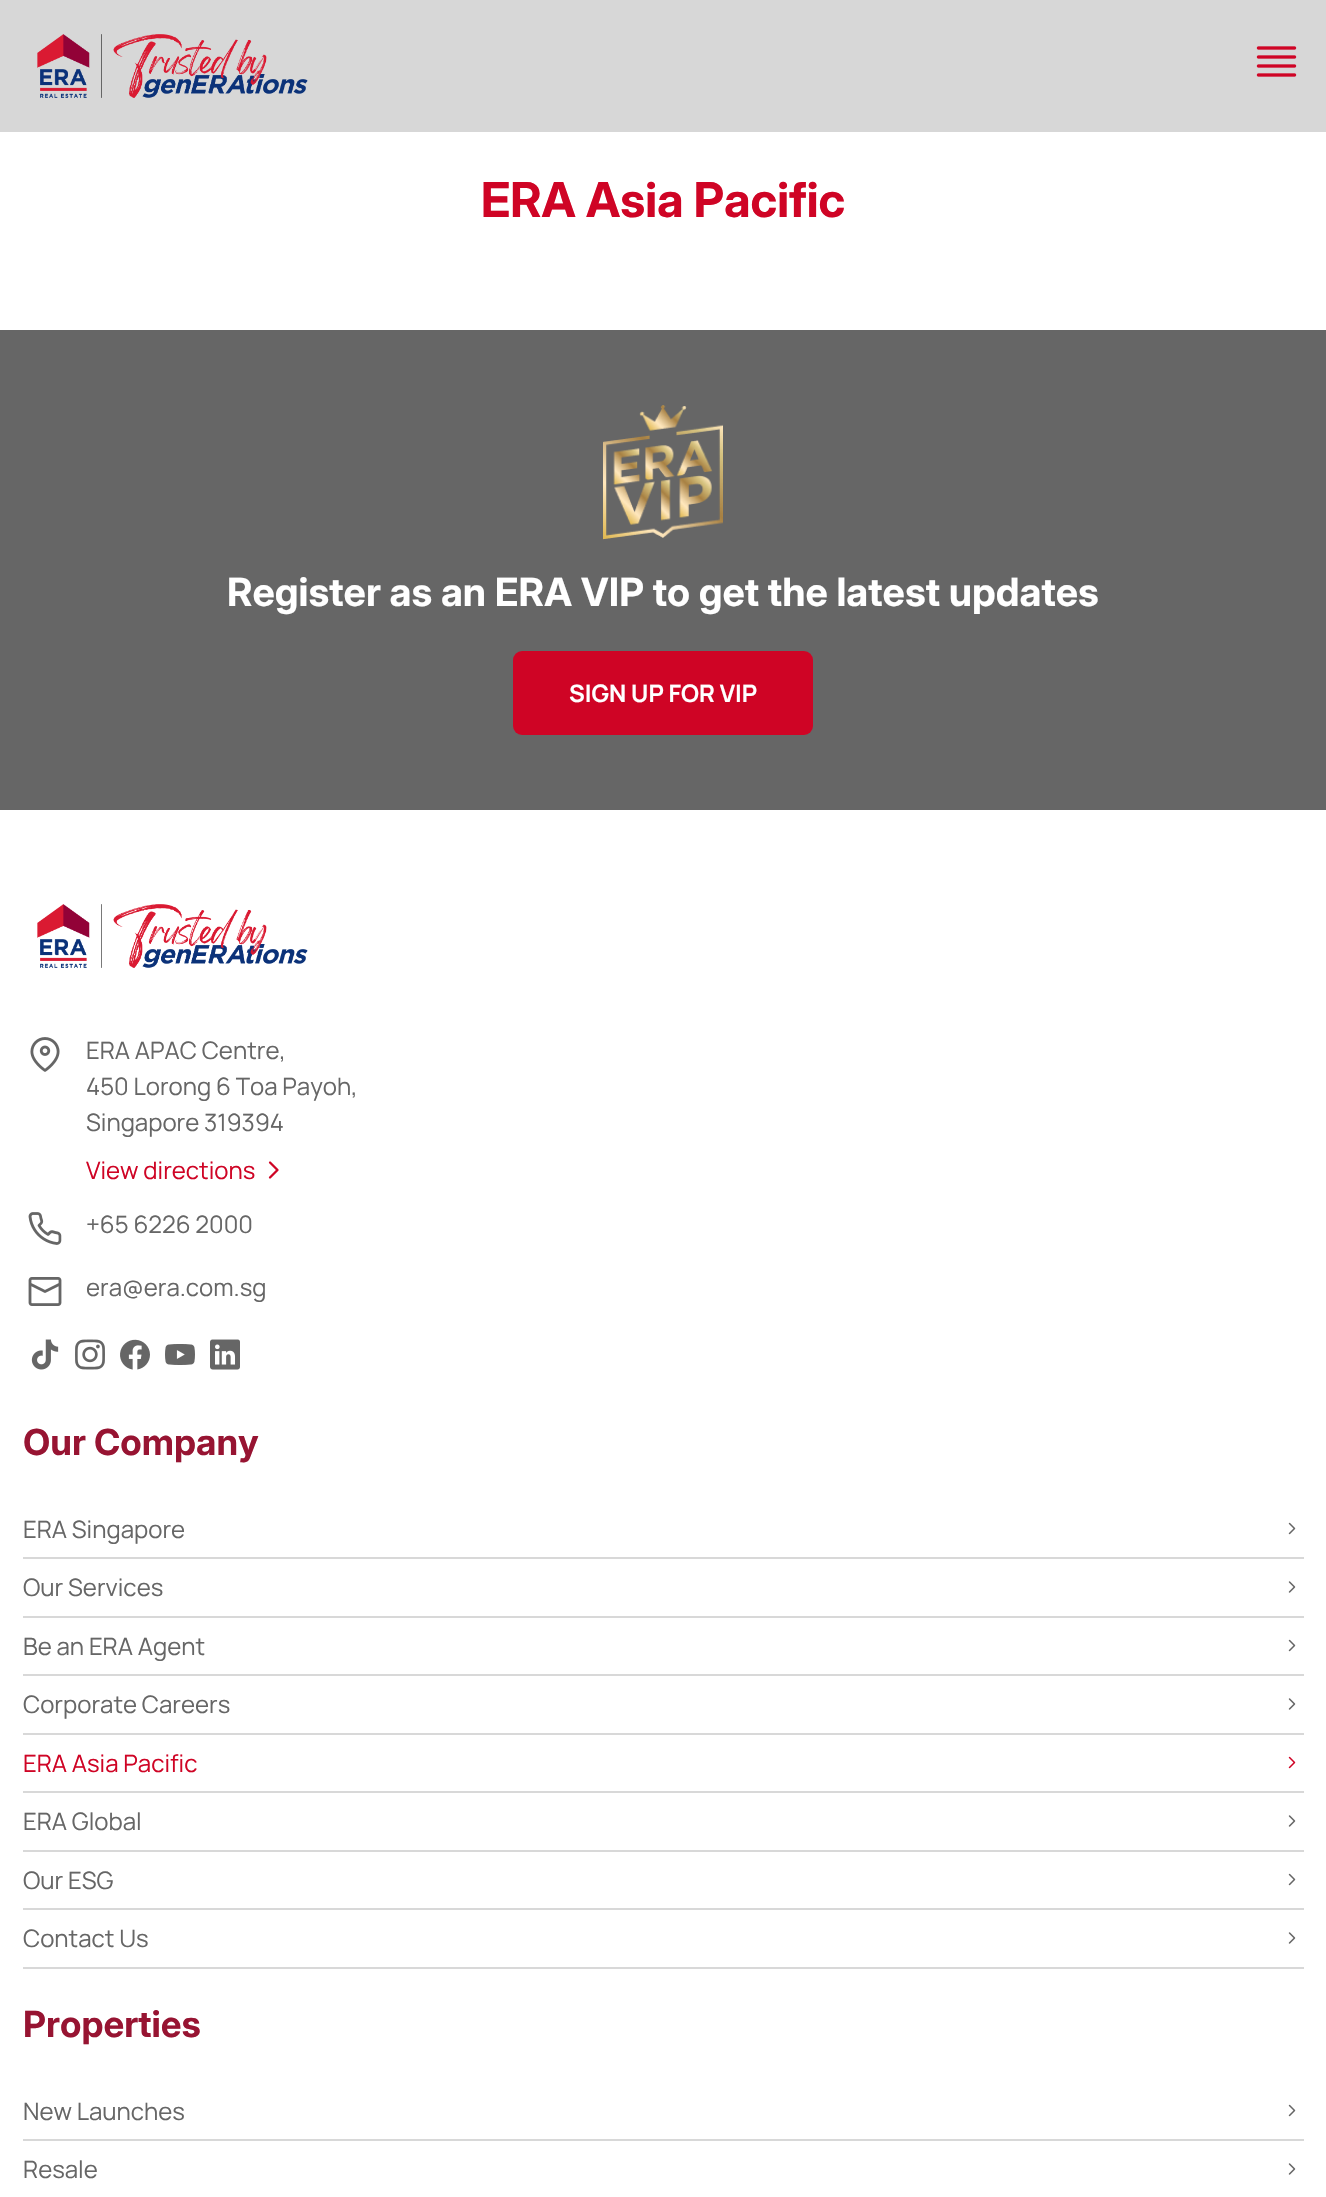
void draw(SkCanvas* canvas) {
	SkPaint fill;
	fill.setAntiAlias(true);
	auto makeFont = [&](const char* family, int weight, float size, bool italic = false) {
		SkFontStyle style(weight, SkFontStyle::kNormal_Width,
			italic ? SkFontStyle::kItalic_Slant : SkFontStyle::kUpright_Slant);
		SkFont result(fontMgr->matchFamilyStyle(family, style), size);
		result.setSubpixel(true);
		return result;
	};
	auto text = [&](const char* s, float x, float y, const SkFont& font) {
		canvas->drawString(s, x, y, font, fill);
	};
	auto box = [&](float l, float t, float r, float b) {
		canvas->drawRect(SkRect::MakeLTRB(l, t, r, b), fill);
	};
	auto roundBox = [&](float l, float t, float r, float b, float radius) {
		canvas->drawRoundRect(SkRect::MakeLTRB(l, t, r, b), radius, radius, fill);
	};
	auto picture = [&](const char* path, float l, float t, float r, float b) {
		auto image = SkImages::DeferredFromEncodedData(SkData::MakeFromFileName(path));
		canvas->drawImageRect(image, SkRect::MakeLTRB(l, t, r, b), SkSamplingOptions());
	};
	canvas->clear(0xFFFFFFFF);
	fill.setColor(0xFFD7D7D7);
	box(0, 0, 1326, 132);
	picture("image0.png", 37, 34, 308, 98);
	picture("image1.png", 1256, 46, 1297, 77);
	fill.setColor(0xFF666666);
	box(0, 330, 1326, 810);
	picture("image2.png", 603, 405, 723, 540);
	fill.setColor(0xFFCF0425);
	roundBox(513, 651, 813, 735, 9);
	picture("image3.png", 37, 904, 308, 968);
	picture("image4.png", 30, 1037, 60, 1072);
	picture("image5.png", 268, 1161, 279, 1179);
	picture("image6.png", 28, 1212, 62, 1245);
	picture("image7.png", 28, 1277, 62, 1306);
	picture("image8.png", 31, 1339, 59, 1370);
	picture("image9.png", 75, 1339, 105, 1370);
	picture("image10.png", 120, 1339, 150, 1370);
	picture("image11.png", 165, 1344, 195, 1365);
	picture("image12.png", 210, 1339, 240, 1370);
	fill.setColor(0xFFD8D8D8);
	box(23, 1557, 1304, 1559);
	picture("image13.png", 1288, 1522, 1296, 1535);
	box(23, 1616, 1304, 1618);
	picture("image14.png", 1288, 1581, 1296, 1593);
	box(23, 1674, 1304, 1676);
	picture("image13.png", 1288, 1639, 1296, 1652);
	box(23, 1733, 1304, 1735);
	picture("image14.png", 1288, 1698, 1296, 1710);
	box(23, 1791, 1304, 1793);
	picture("image15.png", 1288, 1756, 1296, 1769);
	box(23, 1850, 1304, 1852);
	picture("image14.png", 1288, 1815, 1296, 1827);
	box(23, 1908, 1304, 1910);
	picture("image13.png", 1288, 1873, 1296, 1886);
	box(23, 1967, 1304, 1969);
	picture("image14.png", 1288, 1932, 1296, 1944);
	box(23, 2139, 1304, 2141);
	picture("image13.png", 1288, 2104, 1296, 2117);
	picture("image14.png", 1288, 2163, 1296, 2175);
	auto font1 = makeFont("Inter", 700, 48);
	fill.setColor(0xFFCF0425);
	text("ERA Asia Pacific", 481, 217, font1);
	auto font2 = makeFont("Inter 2", 700, 39);
	fill.setColor(0xFFFFFFFF);
	text("Register as an ERA VIP to get the latest updates", 227, 606, font2);
	auto font3 = makeFont("Manrope", 700, 24);
	text("SIGN UP FOR VIP", 569, 702, font3);
	auto font4 = makeFont("Manrope", 400, 24);
	fill.setColor(0xFF666666);
	text("ERA APAC Centre,", 86, 1059, font4);
	text("450 Lorong 6 Toa Payoh,", 86, 1095, font4);
	text("Singapore 319394", 86, 1131, font4);
	fill.setColor(0xFFCF0425);
	text("View directions", 86, 1179, font4);
	fill.setColor(0xFF666666);
	text("+65 6226 2000", 86, 1233, font4);
	text("era@era.com.sg", 86, 1296, font4);
	auto font5 = makeFont("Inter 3", 700, 36);
	fill.setColor(0xFF971432);
	text("Our Company", 23, 1455, font5);
	fill.setColor(0xFF666666);
	text("ERA Singapore", 23, 1538, font4);
	text("Our Services", 23, 1596, font4);
	text("Be an ERA Agent", 23, 1655, font4);
	text("Corporate Careers", 23, 1713, font4);
	fill.setColor(0xFFCF0425);
	text("ERA Asia Pacific", 23, 1772, font4);
	fill.setColor(0xFF666666);
	text("ERA Global", 23, 1830, font4);
	text("Our ESG", 23, 1889, font4);
	text("Contact Us", 23, 1947, font4);
	fill.setColor(0xFF971432);
	text("Properties", 23, 2037, font5);
	fill.setColor(0xFF666666);
	text("New Launches", 23, 2120, font4);
	text("Resale", 23, 2178, font4);
}
